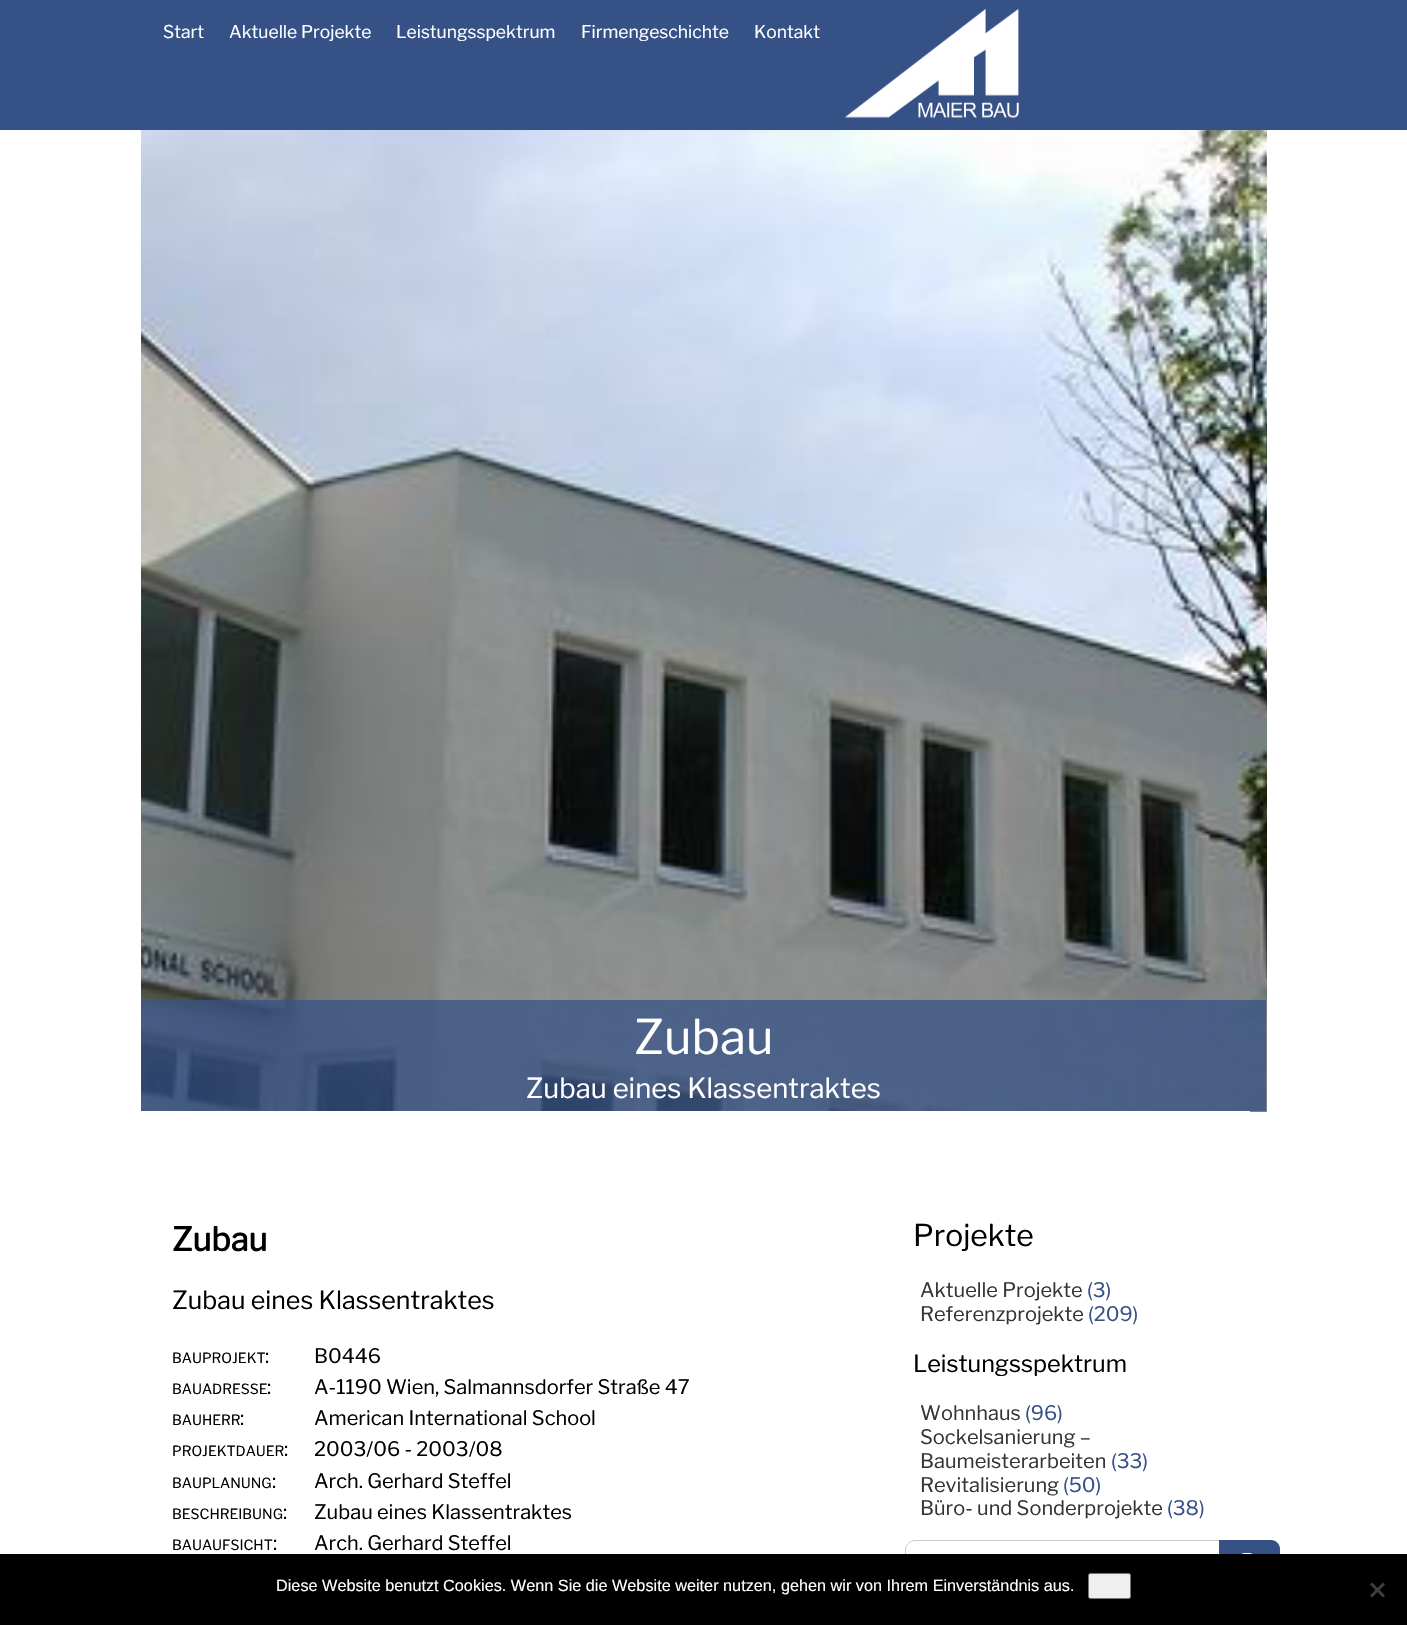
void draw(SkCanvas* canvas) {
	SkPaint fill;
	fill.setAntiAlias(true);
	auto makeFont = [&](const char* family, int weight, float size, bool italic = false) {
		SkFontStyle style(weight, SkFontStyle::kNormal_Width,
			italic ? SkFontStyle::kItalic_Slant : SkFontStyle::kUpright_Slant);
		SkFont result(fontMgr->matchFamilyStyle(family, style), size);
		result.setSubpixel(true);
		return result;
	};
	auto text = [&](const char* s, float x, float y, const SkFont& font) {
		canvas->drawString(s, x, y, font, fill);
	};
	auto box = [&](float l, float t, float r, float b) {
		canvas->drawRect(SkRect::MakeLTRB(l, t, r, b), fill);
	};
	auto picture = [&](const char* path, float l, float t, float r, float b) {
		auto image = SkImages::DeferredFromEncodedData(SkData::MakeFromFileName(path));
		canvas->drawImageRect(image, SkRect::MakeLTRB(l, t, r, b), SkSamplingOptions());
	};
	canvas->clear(0xFFFFFFFF);
	fill.setColor(0xFF355186);
	box(0, 0, 1407, 130);
	picture("image0.png", 845, 8, 1019, 118);
	picture("image1.png", 141, 130, 1267, 1112);
	fill.setColor(0xBF355186);
	box(141, 1000, 1266, 1071);
	box(141, 1071, 1266, 1111);
	fill.setColor(0xFFFFFFFF);
	box(141, 1111, 1250, 1112);
	fill.setStyle(SkPaint::kStroke_Style);
	fill.setStrokeWidth(1);
	fill.setColor(0xFFCCCCCC);
	canvas->drawRoundRect(SkRect::MakeLTRB(905.5f, 1540.5f, 1279.5f, 1590.5f), 9.5f, 9.5f, fill);
	fill.setStyle(SkPaint::kFill_Style);
	fill.setColor(0xFF355186);
	canvas->drawPath(SkPathBuilder().moveTo(1219, 1540).lineTo(1271, 1540).cubicTo(1276, 1540, 1280, 1544, 1280, 1549).lineTo(1280, 1582).cubicTo(1280, 1587, 1276, 1591, 1271, 1591).lineTo(1219, 1591).close().detach(), fill);
	picture("image2.png", 1241, 1553, 1253, 1554);
	fill.setColor(0xFF000000);
	box(0, 1554, 1407, 1625);
	fill.setColor(0xFFEFEFEF);
	canvas->drawRoundRect(SkRect::MakeLTRB(1088.5f, 1573.5f, 1130.5f, 1598.5f), 2, 2, fill);
	fill.setStyle(SkPaint::kStroke_Style);
	fill.setColor(0xFF767676);
	canvas->drawRoundRect(SkRect::MakeLTRB(1088.5f, 1573.5f, 1130.5f, 1598.5f), 2, 2, fill);
	fill.setStyle(SkPaint::kFill_Style);
	fill.setColor(0xFF404040);
	canvas->drawPath(SkPathBuilder().moveTo(1383, 1582.5f).lineTo(1385, 1584.5f).lineTo(1372, 1597.5f).lineTo(1370, 1595.5f).close().detach(), fill);
	canvas->drawPath(SkPathBuilder().moveTo(1370, 1584.5f).lineTo(1372, 1582.5f).lineTo(1385, 1595.5f).lineTo(1383, 1597.5f).close().detach(), fill);
	auto font1 = makeFont("Libre Franklin", 100, 17.5f);
	fill.setColor(0xFFFFFFFF);
	text("Start", 163, 38, font1);
	text("Aktuelle Projekte", 229, 38, font1);
	text("Leistungsspektrum", 396, 38, font1);
	text("Firmengeschichte", 581, 38, font1);
	text("Kontakt", 754, 38, font1);
	auto font2 = makeFont("Libre Franklin", 100, 47.5f);
	text("Zubau", 634, 1054, font2);
	auto font3 = makeFont("Libre Franklin", 100, 27.5f);
	text("Zubau eines Klassentraktes", 526, 1098, font3);
	auto font4 = makeFont("Libre Franklin", 700, 32.5f);
	fill.setColor(0xFF000000);
	text("Zubau", 172, 1251, font4);
	auto font5 = makeFont("Libre Franklin", 100, 25);
	text("Zubau eines Klassentraktes", 172, 1309, font5);
	auto font6 = makeFont("Libre Franklin", 100, 14);
	text("BAUPROJEKT", 172, 1363, font6);
	auto font7 = makeFont("Libre Franklin", 100, 20);
	text(":", 265, 1363, font7);
	text("B0446", 314, 1363, font7);
	text("BAUADRESSE", 172, 1394, font6);
	text(":", 267, 1394, font7);
	text("A-1190 Wien, Salmannsdorfer Straße 47", 314, 1394, font7);
	text("BAUHERR", 172, 1425, font6);
	text(":", 240, 1425, font7);
	text("American International School", 314, 1425, font7);
	text("PROJEKTDAUER", 172, 1456, font6);
	text(":", 284, 1456, font7);
	text("2003/06 - 2003/08", 314, 1456, font7);
	text("BAUPLANUNG", 172, 1488, font6);
	text(":", 272, 1488, font7);
	text("Arch. Gerhard Steffel", 314, 1488, font7);
	text("BESCHREIBUNG", 172, 1519, font6);
	text(":", 283, 1519, font7);
	text("Zubau eines Klassentraktes", 314, 1519, font7);
	text("BAUAUFSICHT", 172, 1550, font6);
	text(":", 273, 1550, font7);
	text("Arch. Gerhard Steffel", 314, 1550, font7);
	auto font8 = makeFont("Libre Franklin", 100, 30);
	text("Projekte", 913, 1246, font8);
	fill.setColor(0xFF353535);
	text("Aktuelle Projekte", 920, 1297, font7);
	fill.setColor(0xFF355186);
	text("(3)", 1087, 1297, font7);
	fill.setColor(0xFF353535);
	text("Referenzprojekte", 920, 1321, font7);
	fill.setColor(0xFF355186);
	text("(209)", 1088, 1321, font7);
	auto font9 = makeFont("Libre Franklin", 100, 23.5f);
	fill.setColor(0xFF000000);
	text("Leistungsspektrum", 913, 1372, font9);
	fill.setColor(0xFF353535);
	text("Wohnhaus", 920, 1420, font7);
	fill.setColor(0xFF355186);
	text("(96)", 1025, 1420, font7);
	fill.setColor(0xFF353535);
	text("Sockelsanierung –", 920, 1444, font7);
	text("Baumeisterarbeiten", 920, 1468, font7);
	fill.setColor(0xFF355186);
	text("(33)", 1111, 1468, font7);
	fill.setColor(0xFF353535);
	text("Revitalisierung", 920, 1492, font7);
	fill.setColor(0xFF355186);
	text("(50)", 1063, 1492, font7);
	fill.setColor(0xFF353535);
	text("Büro- und Sonderprojekte", 920, 1515, font7);
	fill.setColor(0xFF355186);
	text("(38)", 1167, 1515, font7);
	auto font10 = makeFont("Liberation Sans", 400, 16.25f);
	fill.setColor(0xFFFFFFFF);
	text("Diese Website benutzt Cookies. Wenn Sie die Website weiter nutzen, gehen wir von Ihrem Einverständnis aus.", 276, 1591, font10);
}
